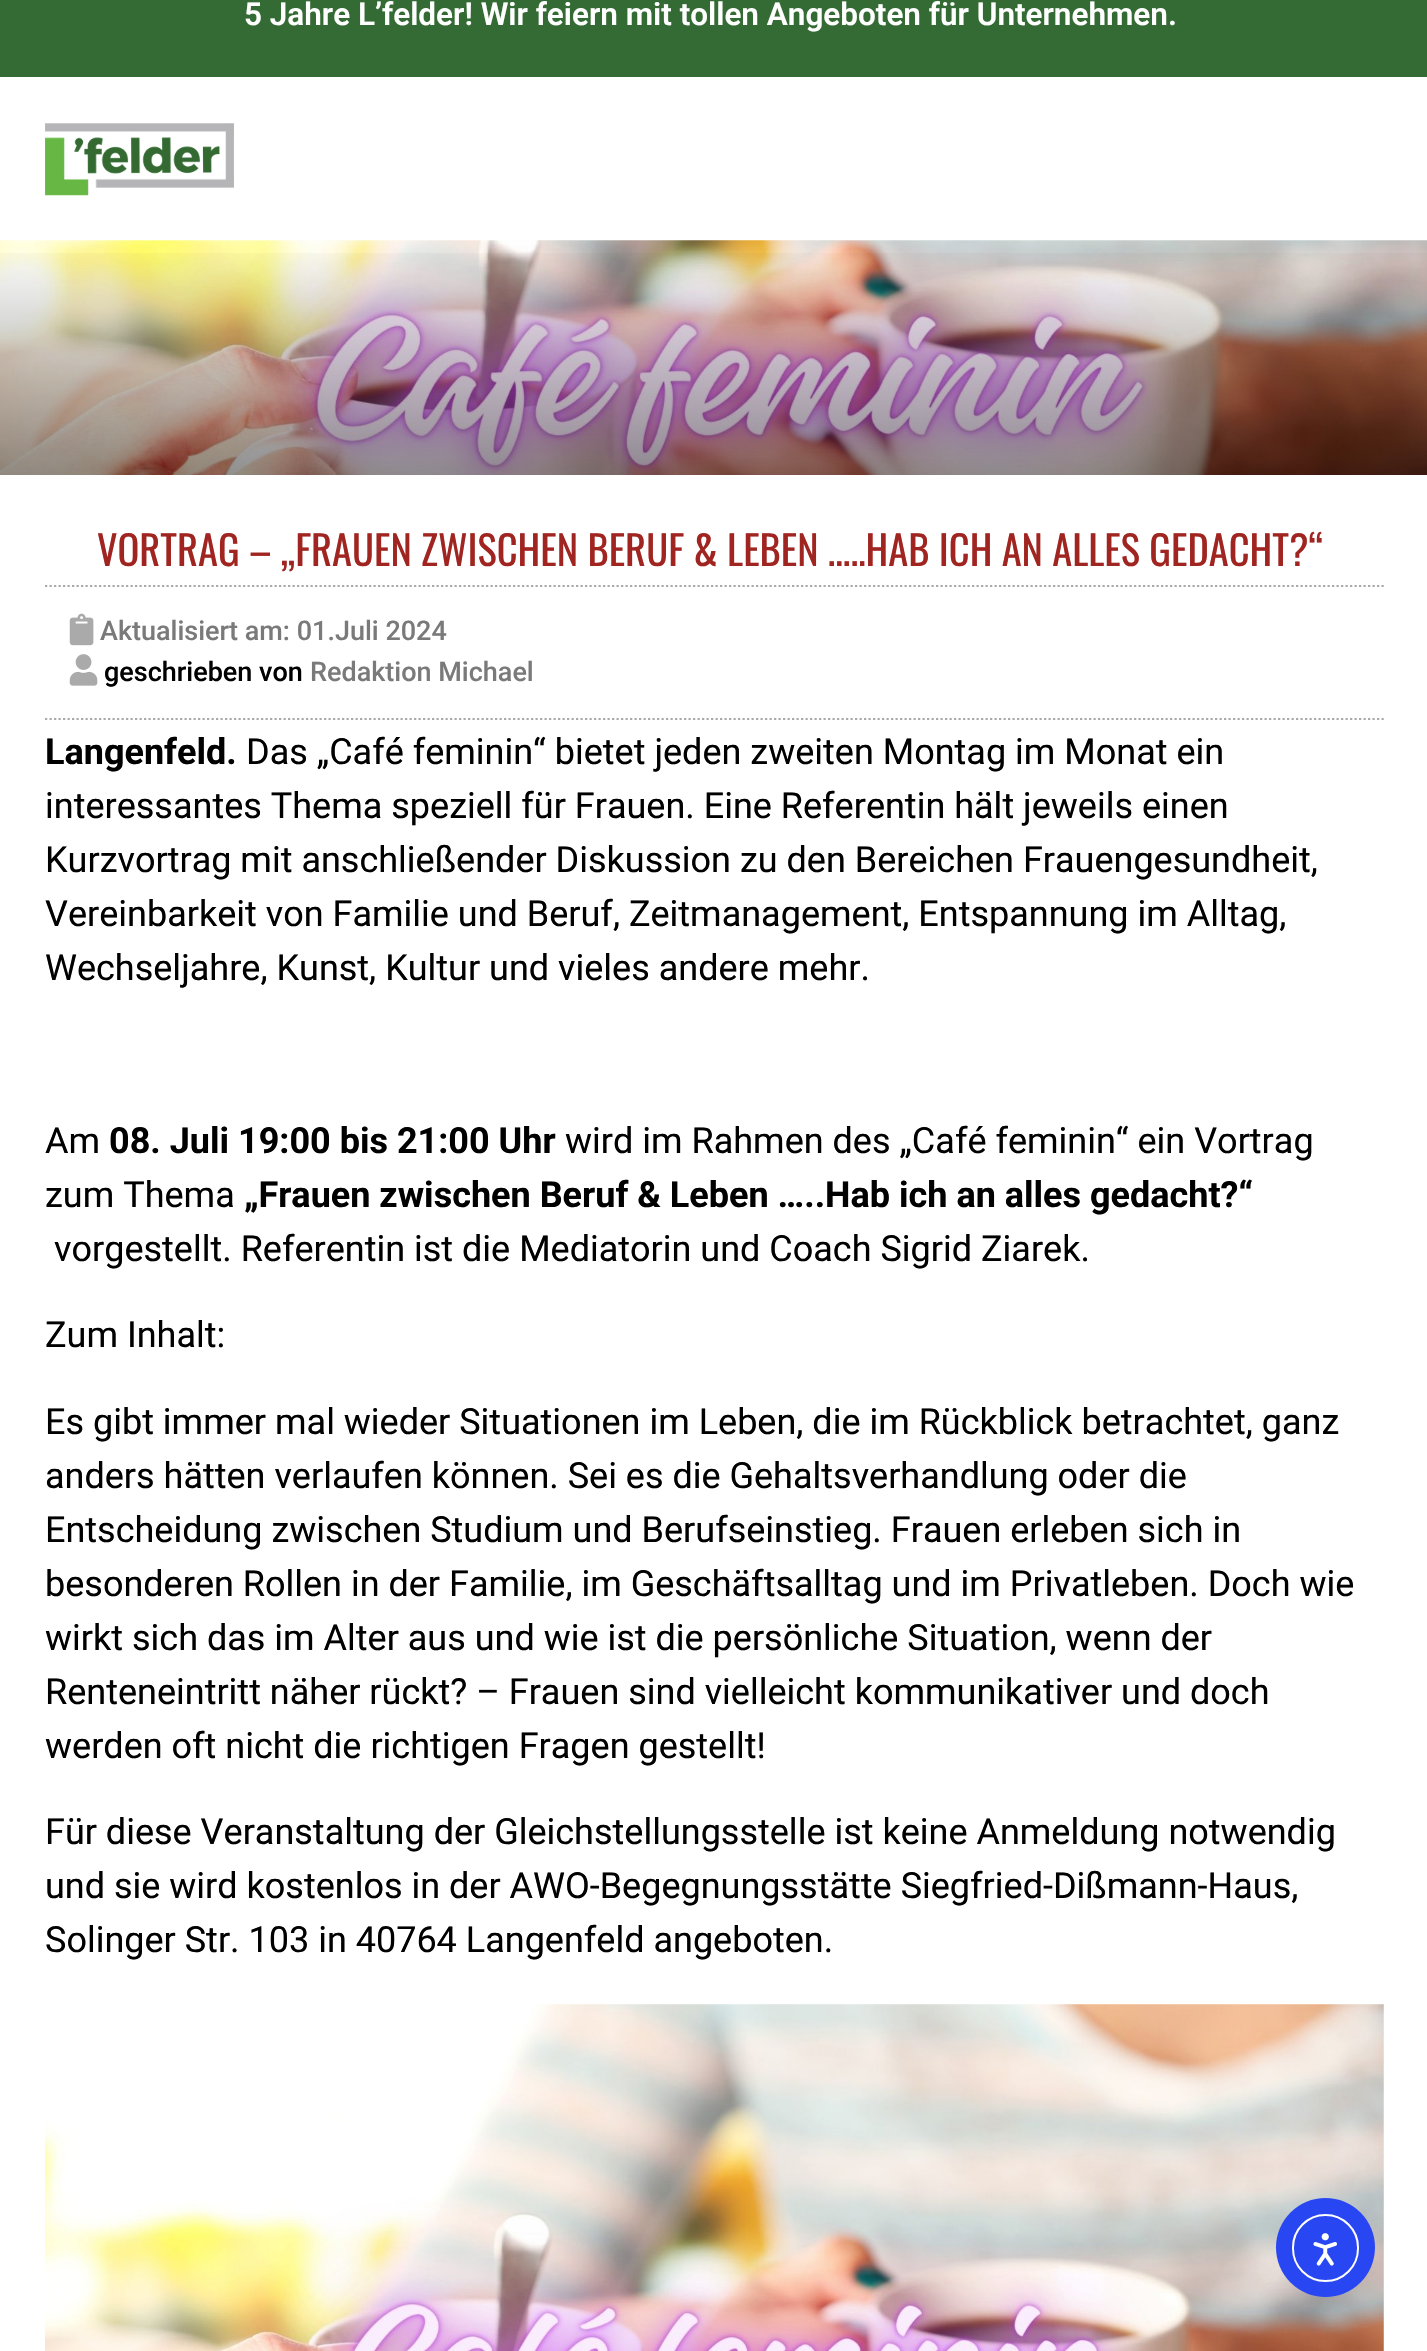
void draw(SkCanvas* canvas) {
	SkPaint fill;
	fill.setAntiAlias(true);
	auto makeFont = [&](const char* family, int weight, float size, bool italic = false) {
		SkFontStyle style(weight, SkFontStyle::kNormal_Width,
			italic ? SkFontStyle::kItalic_Slant : SkFontStyle::kUpright_Slant);
		SkFont result(fontMgr->matchFamilyStyle(family, style), size);
		result.setSubpixel(true);
		return result;
	};
	auto text = [&](const char* s, float x, float y, const SkFont& font) {
		canvas->drawString(s, x, y, font, fill);
	};
	auto box = [&](float l, float t, float r, float b) {
		canvas->drawRect(SkRect::MakeLTRB(l, t, r, b), fill);
	};
	auto picture = [&](const char* path, float l, float t, float r, float b) {
		auto image = SkImages::DeferredFromEncodedData(SkData::MakeFromFileName(path));
		canvas->drawImageRect(image, SkRect::MakeLTRB(l, t, r, b), SkSamplingOptions());
	};
	canvas->clear(0xFFFFFFFF);
	fill.setColor(0xFF346A33);
	box(0, 0, 1427, 77);
	picture("image0.png", 45, 123, 234, 196);
	picture("image1.png", 0, 240, 1427, 475);
	{
		const SkColor colors[] = {0x00000000, 0x80000000};
		const float stops[] = {0, 1};
		const SkPoint ends[] = {{714, 241}, {714, 513}};
		fill.setShader(SkGradientShader::MakeLinear(ends, colors, stops, 2, SkTileMode::kClamp));
		fill.setAlpha(255);
	}
	box(0, 253, 1427, 475);
	fill.setStyle(SkPaint::kStroke_Style);
	fill.setStrokeWidth(2.2f);
	fill.setShader(nullptr);
	fill.setColor(0xFFAAAAAA);
	fill.setPathEffect(SkDashPathEffect::Make({{2.25f, 2.25f}}, 0));
	canvas->drawPath(SkPathBuilder().moveTo(45, 586).lineTo(1384, 586).detach(), fill);
	fill.setPathEffect(nullptr);
	fill.setPathEffect(SkDashPathEffect::Make({{2.25f, 2.25f}}, 0));
	canvas->drawPath(SkPathBuilder().moveTo(45, 719).lineTo(1384, 719).detach(), fill);
	fill.setPathEffect(nullptr);
	picture("image2.png", 69, 613, 94, 646);
	picture("image3.png", 69, 654, 98, 686);
	picture("image4.png", 45, 2004, 1384, 2351);
	fill.setStyle(SkPaint::kFill_Style);
	fill.setColor(0xFF2847F3);
	canvas->drawCircle(1325.5f, 2247.5f, 49.5f, fill);
	fill.setStyle(SkPaint::kStroke_Style);
	fill.setStrokeWidth(2);
	fill.setColor(0xFFFFFFFF);
	canvas->drawRoundRect(SkRect::MakeLTRB(1293, 2215, 1358, 2281), 32.5f, 32.5f, fill);
	picture("image5.png", 1313, 2233, 1337, 2266);
	auto font1 = makeFont("Roboto", 600, 31.5f);
	fill.setStyle(SkPaint::kFill_Style);
	text("5 Jahre L’felder! Wir feiern mit tollen Angeboten für Unternehmen.", 244, 25, font1);
	auto font2 = makeFont("Oswald", 400, 40.5f);
	fill.setColor(0xFFA02521);
	text("VORTRAG – „FRAUEN ZWISCHEN BERUF & LEBEN …..HAB ICH AN ALLES GEDACHT?“", 97, 566, font2);
	auto font3 = makeFont("Roboto", 500, 27);
	fill.setColor(0xFF7A7A7A);
	text("Aktualisiert am: 01.Juli 2024", 100, 640, font3);
	fill.setColor(0xFF000000);
	text("geschrieben von", 104, 681, font3);
	fill.setColor(0xFF7A7A7A);
	text("Redaktion Michael", 310, 681, font3);
	auto font4 = makeFont("Roboto", 700, 36);
	fill.setColor(0xFF000000);
	text("Langenfeld.", 45, 764, font4);
	auto font5 = makeFont("Roboto", 400, 36);
	text("Das „Café feminin“ bietet jeden zweiten Montag im Monat ein", 246, 764, font5);
	text("interessantes Thema speziell für Frauen. Eine Referentin hält jeweils einen", 45, 818, font5);
	text("Kurzvortrag mit anschließender Diskussion zu den Bereichen Frauengesundheit,", 45, 872, font5);
	text("Vereinbarkeit von Familie und Beruf, Zeitmanagement, Entspannung im Alltag,", 45, 926, font5);
	text("Wechseljahre, Kunst, Kultur und vieles andere mehr.", 45, 980, font5);
	text("Am", 45, 1153, font5);
	text("08. Juli 19:00 bis 21:00 Uhr", 109, 1153, font4);
	text("wird im Rahmen des „Café feminin“ ein Vortrag", 565, 1153, font5);
	text("zum Thema", 45, 1207, font5);
	text("„Frauen zwischen Beruf & Leben …..Hab ich an alles gedacht?“", 244, 1207, font4);
	text("vorgestellt. Referentin ist die Mediatorin und Coach Sigrid Ziarek.", 54, 1261, font5);
	text("Zum Inhalt:", 45, 1347, font5);
	text("Es gibt immer mal wieder Situationen im Leben, die im Rückblick betrachtet, ganz", 45, 1434, font5);
	text("anders hätten verlaufen können. Sei es die Gehaltsverhandlung oder die", 45, 1488, font5);
	text("Entscheidung zwischen Studium und Berufseinstieg. Frauen erleben sich in", 45, 1542, font5);
	text("besonderen Rollen in der Familie, im Geschäftsalltag und im Privatleben. Doch wie", 45, 1596, font5);
	text("wirkt sich das im Alter aus und wie ist die persönliche Situation, wenn der", 45, 1650, font5);
	text("Renteneintritt näher rückt? – Frauen sind vielleicht kommunikativer und doch", 45, 1704, font5);
	text("werden oft nicht die richtigen Fragen gestellt!", 45, 1758, font5);
	text("Für diese Veranstaltung der Gleichstellungsstelle ist keine Anmeldung notwendig", 45, 1844, font5);
	text("und sie wird kostenlos in der AWO-Begegnungsstätte Siegfried-Dißmann-Haus,", 45, 1898, font5);
	text("Solinger Str. 103 in 40764 Langenfeld angeboten.", 45, 1952, font5);
}
